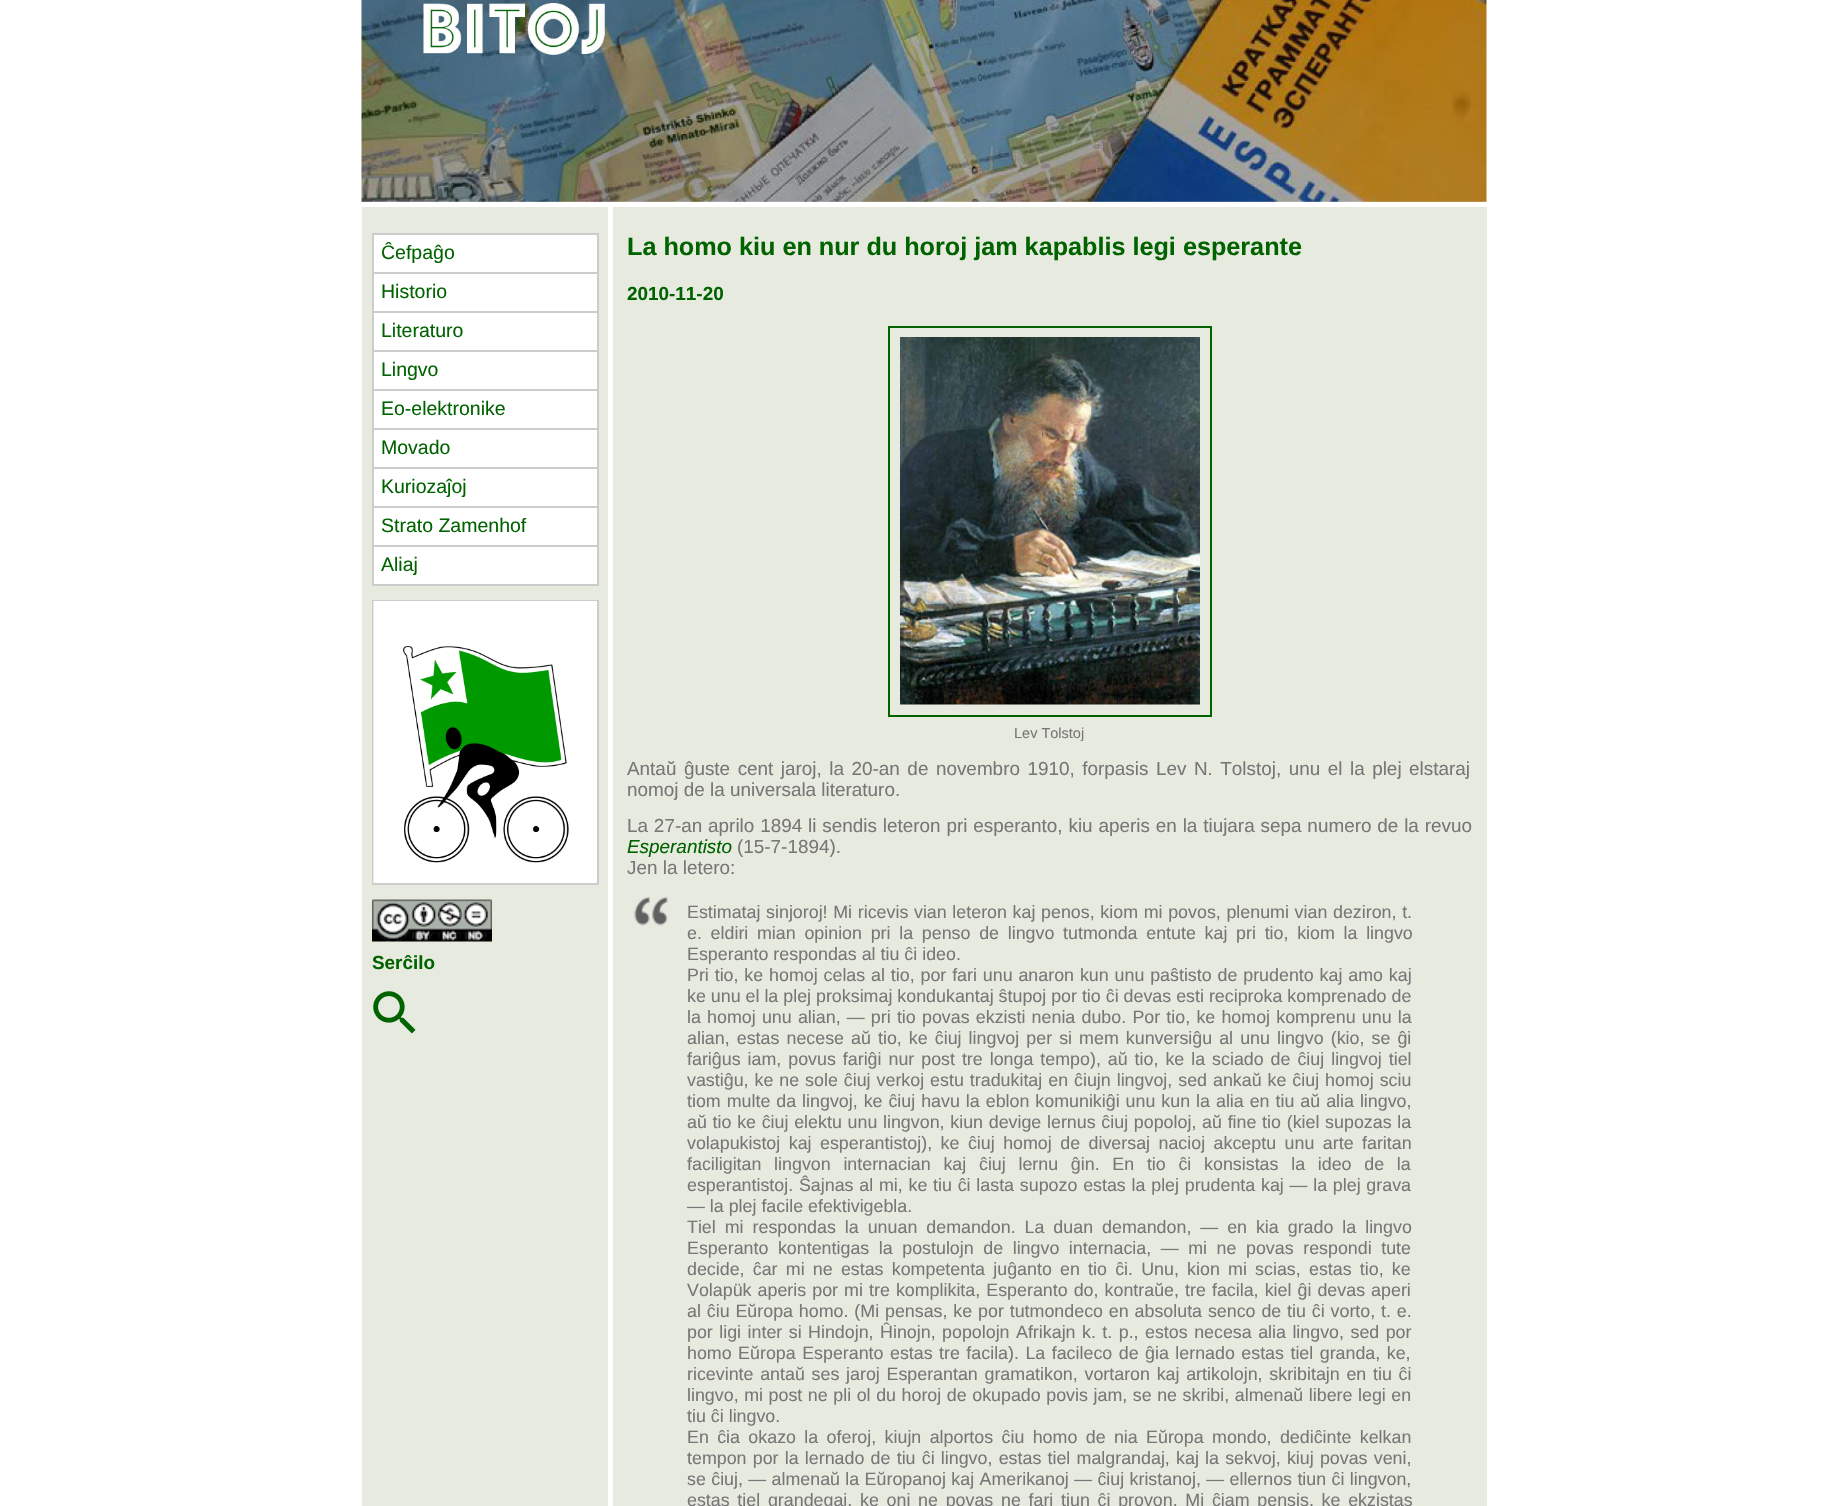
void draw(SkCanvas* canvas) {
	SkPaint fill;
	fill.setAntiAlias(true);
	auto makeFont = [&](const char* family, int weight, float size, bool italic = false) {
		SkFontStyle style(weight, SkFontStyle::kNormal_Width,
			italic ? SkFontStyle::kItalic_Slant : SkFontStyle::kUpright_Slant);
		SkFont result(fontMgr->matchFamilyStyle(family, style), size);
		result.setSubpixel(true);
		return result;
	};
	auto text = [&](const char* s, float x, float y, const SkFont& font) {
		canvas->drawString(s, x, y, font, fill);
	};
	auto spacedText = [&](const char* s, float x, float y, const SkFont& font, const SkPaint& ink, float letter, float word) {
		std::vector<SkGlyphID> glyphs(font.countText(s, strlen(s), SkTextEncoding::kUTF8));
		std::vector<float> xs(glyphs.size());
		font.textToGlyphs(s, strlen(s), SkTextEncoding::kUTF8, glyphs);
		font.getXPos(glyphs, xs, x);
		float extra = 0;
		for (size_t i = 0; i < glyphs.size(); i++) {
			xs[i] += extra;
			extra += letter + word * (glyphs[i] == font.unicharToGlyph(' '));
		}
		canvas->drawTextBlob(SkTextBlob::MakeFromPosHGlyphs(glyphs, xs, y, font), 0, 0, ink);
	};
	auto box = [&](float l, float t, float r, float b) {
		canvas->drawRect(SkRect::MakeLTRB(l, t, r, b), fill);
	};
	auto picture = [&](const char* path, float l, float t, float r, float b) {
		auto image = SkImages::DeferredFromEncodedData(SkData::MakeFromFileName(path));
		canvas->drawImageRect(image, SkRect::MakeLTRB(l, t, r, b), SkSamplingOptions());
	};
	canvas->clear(0xFFFFFFFF);
	picture("image0.png", 361, 0, 1487, 202);
	fill.setColor(0xFFE7EADF);
	box(362, 207, 608, 1506);
	fill.setColor(0xFFCCCCCC);
	box(372, 584, 599, 586);
	fill.setColor(0xFFFFFFFF);
	box(374, 235, 597, 272);
	fill.setColor(0xFFCCCCCC);
	box(372, 233, 599, 235);
	box(597, 233, 599, 272);
	box(372, 233, 374, 272);
	fill.setColor(0xFFFFFFFF);
	box(374, 274, 597, 311);
	fill.setColor(0xFFCCCCCC);
	box(372, 272, 599, 274);
	box(597, 272, 599, 311);
	box(372, 272, 374, 311);
	fill.setColor(0xFFFFFFFF);
	box(374, 313, 597, 350);
	fill.setColor(0xFFCCCCCC);
	box(372, 311, 599, 313);
	box(597, 311, 599, 350);
	box(372, 311, 374, 350);
	fill.setColor(0xFFFFFFFF);
	box(374, 352, 597, 389);
	fill.setColor(0xFFCCCCCC);
	box(372, 350, 599, 352);
	box(597, 350, 599, 389);
	box(372, 350, 374, 389);
	fill.setColor(0xFFFFFFFF);
	box(374, 391, 597, 428);
	fill.setColor(0xFFCCCCCC);
	box(372, 389, 599, 391);
	box(597, 389, 599, 428);
	box(372, 389, 374, 428);
	fill.setColor(0xFFFFFFFF);
	box(374, 430, 597, 467);
	fill.setColor(0xFFCCCCCC);
	box(372, 428, 599, 430);
	box(597, 428, 599, 467);
	box(372, 428, 374, 467);
	fill.setColor(0xFFFFFFFF);
	box(374, 469, 597, 506);
	fill.setColor(0xFFCCCCCC);
	box(372, 467, 599, 469);
	box(597, 467, 599, 506);
	box(372, 467, 374, 506);
	fill.setColor(0xFFFFFFFF);
	box(374, 508, 597, 545);
	fill.setColor(0xFFCCCCCC);
	box(372, 506, 599, 508);
	box(597, 506, 599, 545);
	box(372, 506, 374, 545);
	fill.setColor(0xFFFFFFFF);
	box(374, 547, 597, 584);
	fill.setColor(0xFFCCCCCC);
	box(372, 545, 599, 547);
	box(597, 545, 599, 584);
	box(372, 545, 374, 584);
	fill.setStyle(SkPaint::kStroke_Style);
	fill.setStrokeWidth(2);
	canvas->drawRect(SkRect::MakeLTRB(373, 601, 598, 884), fill);
	picture("image1.png", 373, 601, 597, 883);
	picture("image2.png", 372, 899, 492, 942);
	picture("image3.png", 373, 991, 416, 1034);
	fill.setStyle(SkPaint::kFill_Style);
	fill.setColor(0xFFE7EADF);
	box(613, 207, 1487, 1506);
	fill.setStyle(SkPaint::kStroke_Style);
	fill.setColor(0xFF006300);
	canvas->drawRect(SkRect::MakeLTRB(889, 327, 1211, 716), fill);
	picture("image4.png", 900, 337, 1200, 705);
	picture("image5.png", 634, 896, 668, 926);
	auto font1 = makeFont("Liberation Sans", 400, 19.5f);
	fill.setStyle(SkPaint::kFill_Style);
	text("Ĉefpaĝo", 381, 259, font1);
	text("Historio", 381, 298, font1);
	text("Literaturo", 381, 337, font1);
	text("Lingvo", 381, 376, font1);
	text("Eo-elektronike", 381, 415, font1);
	text("Movado", 381, 454, font1);
	text("Kuriozaĵoj", 381, 493, font1);
	text("Strato Zamenhof", 381, 532, font1);
	text("Aliaj", 381, 571, font1);
	auto font2 = makeFont("Liberation Sans", 700, 18.9f);
	text("Serĉilo", 372, 969, font2);
	auto font3 = makeFont("Liberation Sans", 700, 25.2f);
	text("La homo kiu en nur du horoj jam kapablis legi esperante", 627, 255, font3);
	text("2010-11-20", 627, 300, font2);
	auto font4 = makeFont("Liberation Sans", 400, 14.5f);
	fill.setColor(0xFF777777);
	text("Lev Tolstoj", 1014, 738, font4);
	auto font5 = makeFont("Liberation Sans", 400, 18.9f);
	spacedText("Antaŭ ĝuste cent jaroj, la 20-an de novembro 1910, forpasis Lev N. Tolstoj, unu el la plej elstaraj", 627, 775, font5, fill, 0, 2.25f);
	text("nomoj de la universala literaturo.", 627, 796, font5);
	spacedText("La 27-an aprilo 1894 li sendis leteron pri esperanto, kiu aperis en la tiujara sepa numero de la revuo", 627, 832, font5, fill, 0, 0.6f);
	auto font6 = makeFont("Liberation Sans", 400, 18.9f, true);
	fill.setColor(0xFF006300);
	text("Esperantisto", 627, 853, font6);
	fill.setColor(0xFF777777);
	text("(15-7-1894).", 737, 853, font5);
	text("Jen la letero:", 627, 874, font5);
	auto font7 = makeFont("Liberation Sans", 400, 17.85f);
	spacedText("Estimataj sinjoroj! Mi ricevis vian leteron kaj penos, kiom mi povos, plenumi vian deziron, t.", 687, 918, font7, fill, 0, 0.7f);
	spacedText("e. eldiri mian opinion pri la penso de lingvo tutmonda entute kaj pri tio, kiom la lingvo", 687, 939, font7, fill, 0, 3.75f);
	text("Esperanto respondas al tiu ĉi ideo.", 687, 960, font7);
	spacedText("Pri tio, ke homoj celas al tio, por fari unu anaron kun unu paŝtisto de prudento kaj amo kaj", 687, 981, font7, fill, 0, 0.9f);
	text("ke unu el la plej proksimaj kondukantaj ŝtupoj por tio ĉi devas esti reciproka komprenado de", 687, 1002, font7);
	spacedText("la homoj unu alian, — pri tio povas ekzisti nenia dubo. Por tio, ke homoj komprenu unu la", 687, 1023, font7, fill, 0, 1.25f);
	spacedText("alian, estas necese aŭ tio, ke ĉiuj lingvoj per si mem kunversiĝu al unu lingvo (kio, se ĝi", 687, 1044, font7, fill, 0, 2.1f);
	spacedText("fariĝus iam, povus fariĝi nur post tre longa tempo), aŭ tio, ke la sciado de ĉiuj lingvoj tiel", 687, 1065, font7, fill, 0, 2);
	spacedText("vastiĝu, ke ne sole ĉiuj verkoj estu tradukitaj en ĉiujn lingvoj, sed ankaŭ ke ĉiuj homoj sciu", 687, 1086, font7, fill, 0, 1);
	spacedText("tiom multe da lingvoj, ke ĉiuj havu la eblon komunikiĝi unu kun la alia en tiu aŭ alia lingvo,", 687, 1107, font7, fill, 0, 1);
	spacedText("aŭ tio ke ĉiuj elektu unu lingvon, kiun devige lernus ĉiuj popoloj, aŭ fine tio (kiel supozas la", 687, 1128, font7, fill, 0, 0.75f);
	spacedText("volapukistoj kaj esperantistoj), ke ĉiuj homoj de diversaj nacioj akceptu unu arte faritan", 687, 1149, font7, fill, 0, 3.5f);
	spacedText("faciligitan lingvon internacian kaj ĉiuj lernu ĝin. En tio ĉi konsistas la ideo de la", 687, 1170, font7, fill, 0, 7.75f);
	spacedText("esperantistoj. Ŝajnas al mi, ke tiu ĉi lasta supozo estas la plej prudenta kaj — la plej grava", 687, 1191, font7, fill, 0, 0.8f);
	text("— la plej facile efektivigebla.", 687, 1212, font7);
	spacedText("Tiel mi respondas la unuan demandon. La duan demandon, — en kia grado la lingvo", 687, 1233, font7, fill, 0, 4);
	spacedText("Esperanto kontentigas la postulojn de lingvo internacia, — mi ne povas respondi tute", 687, 1254, font7, fill, 0, 4.6f);
	spacedText("decide, ĉar mi ne estas kompetenta juĝanto en tio ĉi. Unu, kion mi scias, estas tio, ke", 687, 1275, font7, fill, 0, 3.25f);
	spacedText("Volapük aperis por mi tre komplikita, Esperanto do, kontraŭe, tre facila, kiel ĝi devas aperi", 687, 1296, font7, fill, 0, 1.1f);
	spacedText("al ĉiu Eŭropa homo. (Mi pensas, ke por tutmondeco en absoluta senco de tiu ĉi vorto, t. e.", 687, 1317, font7, fill, 0, 0.9f);
	spacedText("por ligi inter si Hindojn, Ĥinojn, popolojn Afrikajn k. t. p., estos necesa alia lingvo, sed por", 687, 1338, font7, fill, 0, 1.5f);
	spacedText("homo Eŭropa Esperanto estas tre facila). La facileco de ĝia lernado estas tiel granda, ke,", 687, 1359, font7, fill, 0, 1.5f);
	spacedText("ricevinte antaŭ ses jaroj Esperantan gramatikon, vortaron kaj artikolojn, skribitajn en tiu ĉi", 687, 1380, font7, fill, 0, 1.75f);
	spacedText("lingvo, mi post ne pli ol du horoj de okupado povis jam, se ne skribi, almenaŭ libere legi en", 687, 1401, font7, fill, 0, 0.6f);
	text("tiu ĉi lingvo.", 687, 1422, font7);
	spacedText("En ĉia okazo la oferoj, kiujn alportos ĉiu homo de nia Eŭropa mondo, dediĉinte kelkan", 687, 1443, font7, fill, 0, 3.4f);
	spacedText("tempon por la lernado de tiu ĉi lingvo, estas tiel malgrandaj, kaj la sekvoj, kiuj povas veni,", 687, 1464, font7, fill, 0, 1.25f);
	spacedText("se ĉiuj, — almenaŭ la Eŭropanoj kaj Amerikanoj — ĉiuj kristanoj, — ellernos tiun ĉi lingvon,", 687, 1485, font7, fill, 0, 0.4f);
	spacedText("estas tiel grandegaj, ke oni ne povas ne fari tiun ĉi provon. Mi ĉiam pensis, ke ekzistas", 687, 1506, font7, fill, 0, 2.75f);
}
